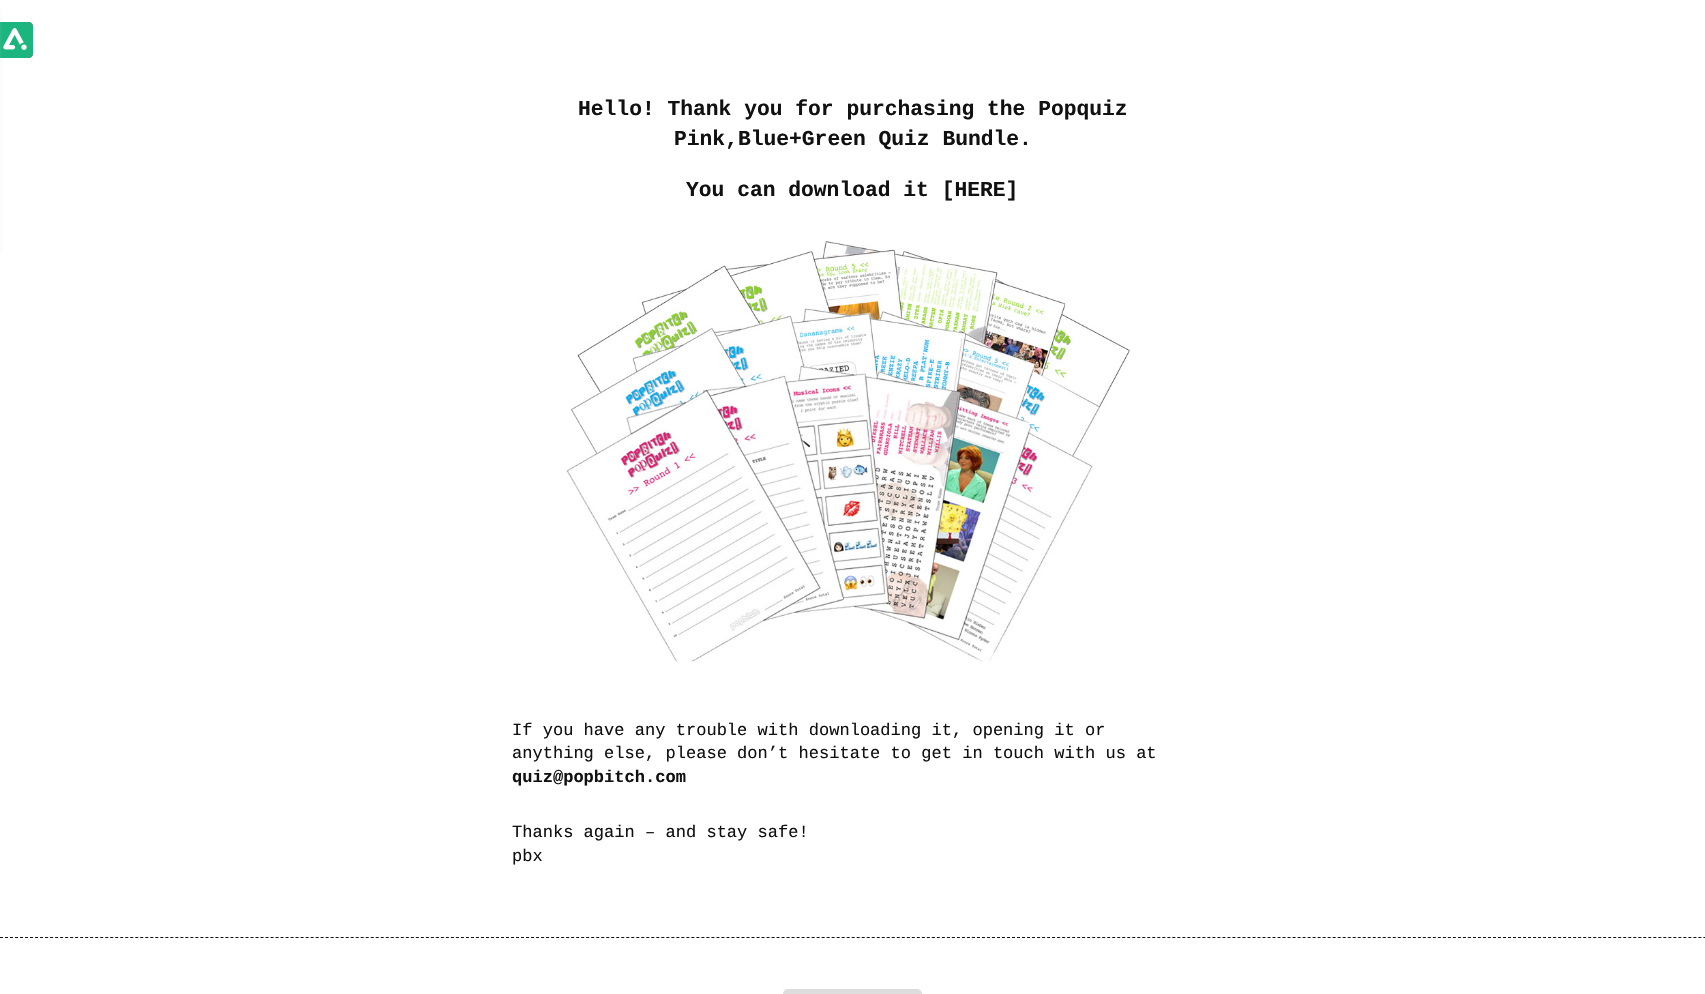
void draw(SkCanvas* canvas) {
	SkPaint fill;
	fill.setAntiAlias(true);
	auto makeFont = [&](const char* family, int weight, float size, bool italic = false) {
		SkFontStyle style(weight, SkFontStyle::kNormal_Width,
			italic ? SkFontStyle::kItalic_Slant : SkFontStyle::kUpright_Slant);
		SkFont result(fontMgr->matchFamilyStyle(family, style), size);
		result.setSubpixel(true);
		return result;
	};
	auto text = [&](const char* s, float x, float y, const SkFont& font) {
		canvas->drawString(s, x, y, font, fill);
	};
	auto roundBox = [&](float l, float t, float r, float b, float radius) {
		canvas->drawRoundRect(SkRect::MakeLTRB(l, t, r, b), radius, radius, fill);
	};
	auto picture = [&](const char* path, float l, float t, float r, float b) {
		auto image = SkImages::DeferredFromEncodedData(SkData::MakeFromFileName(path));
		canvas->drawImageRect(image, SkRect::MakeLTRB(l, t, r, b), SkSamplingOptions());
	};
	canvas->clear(0xFFFFFFFF);
	fill.setColor(0xFFD9534F);
	canvas->drawPath(SkPathBuilder().moveTo(-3, 22).lineTo(29, 22).cubicTo(31, 22, 33, 24, 33, 26).lineTo(33, 54).cubicTo(33, 56, 31, 58, 29, 58).lineTo(-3, 58).close().detach(), fill);
	fill.setColor(0xFF1BB580);
	canvas->drawPath(SkPathBuilder().moveTo(-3, 22).lineTo(28, 22).cubicTo(31, 22, 33, 24, 33, 27).lineTo(33, 53).cubicTo(33, 56, 31, 58, 28, 58).lineTo(-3, 58).close().detach(), fill);
	picture("image0.png", 3, 28, 27, 50);
	fill.setColor(0x82CCCCCC);
	fill.setMaskFilter(SkMaskFilter::MakeBlur(kNormal_SkBlurStyle, 2.5f));
	canvas->drawRect(SkRect::MakeLTRB(-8, 10, -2, 253), fill);
	fill.setMaskFilter(nullptr);
	picture("image1.png", 566, 241, 1130, 662);
	fill.setStyle(SkPaint::kStroke_Style);
	fill.setStrokeWidth(1);
	fill.setColor(0xFF111111);
	fill.setPathEffect(SkDashPathEffect::Make({{3, 2.01f}}, 0));
	canvas->drawPath(SkPathBuilder().moveTo(0, 937.5f).lineTo(1705, 937.5f).detach(), fill);
	fill.setPathEffect(nullptr);
	fill.setStyle(SkPaint::kFill_Style);
	fill.setColor(0xFFDDDDDD);
	roundBox(783, 989, 922, 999, 5);
	auto font1 = makeFont("Liberation Mono", 700, 21.3f);
	fill.setColor(0xFF111111);
	text("Hello! Thank you for purchasing the Popquiz", 578, 115, font1);
	text("Pink,Blue+Green Quiz Bundle.", 674, 145, font1);
	text("You can download it [HERE]", 686, 196, font1);
	auto font2 = makeFont("Liberation Mono", 400, 17.05f);
	text("If you have any trouble with downloading it, opening it or", 512, 735, font2);
	text("anything else, please don’t hesitate to get in touch with us at", 512, 758, font2);
	auto font3 = makeFont("Liberation Mono", 700, 17.05f);
	text("quiz@popbitch.com", 512, 782, font3);
	text("Thanks again – and stay safe!", 512, 837, font2);
	text("pbx", 512, 861, font2);
}
